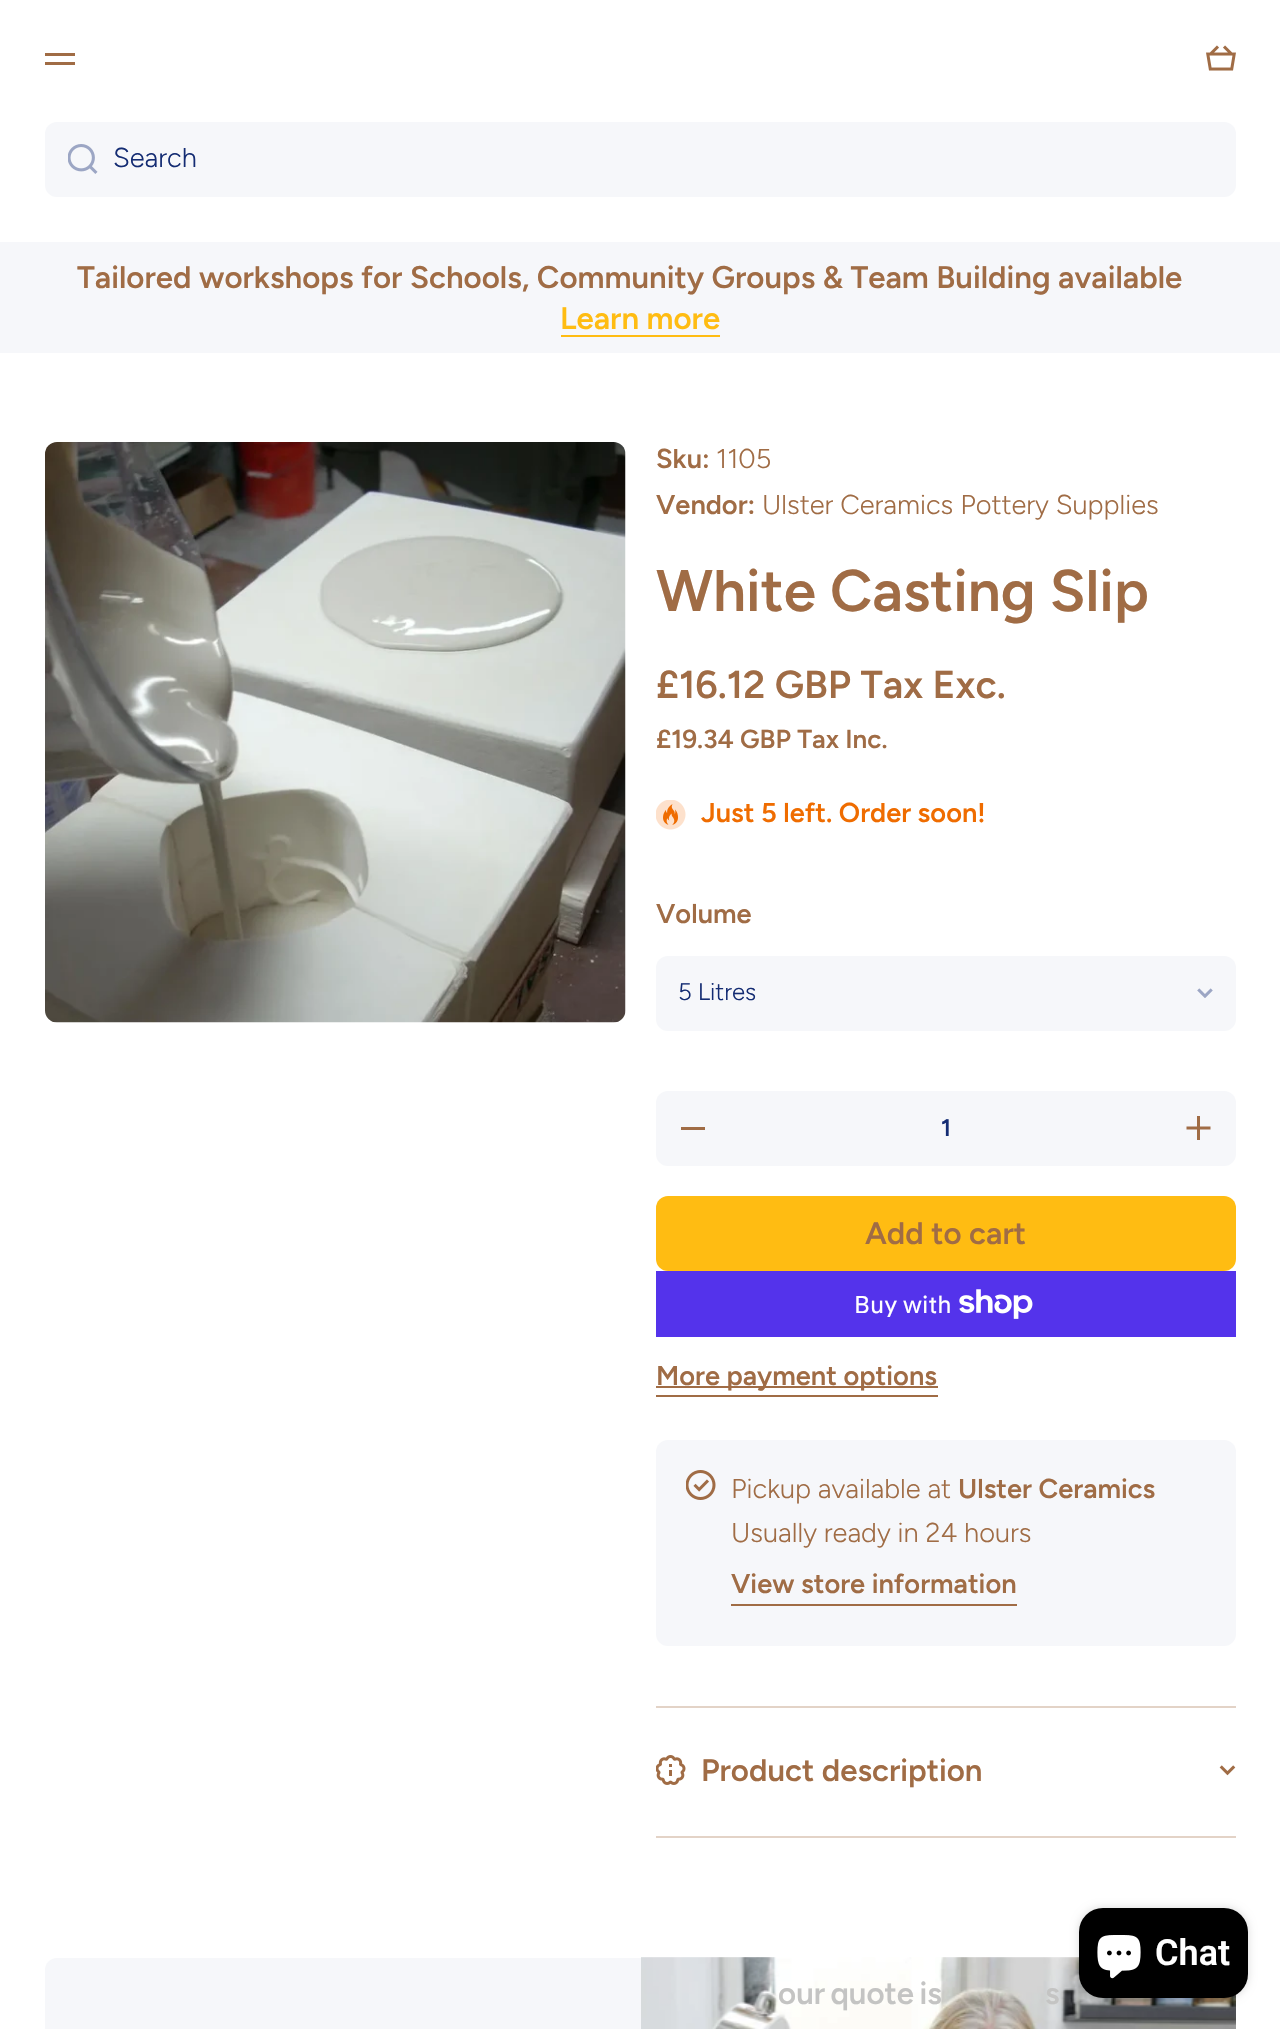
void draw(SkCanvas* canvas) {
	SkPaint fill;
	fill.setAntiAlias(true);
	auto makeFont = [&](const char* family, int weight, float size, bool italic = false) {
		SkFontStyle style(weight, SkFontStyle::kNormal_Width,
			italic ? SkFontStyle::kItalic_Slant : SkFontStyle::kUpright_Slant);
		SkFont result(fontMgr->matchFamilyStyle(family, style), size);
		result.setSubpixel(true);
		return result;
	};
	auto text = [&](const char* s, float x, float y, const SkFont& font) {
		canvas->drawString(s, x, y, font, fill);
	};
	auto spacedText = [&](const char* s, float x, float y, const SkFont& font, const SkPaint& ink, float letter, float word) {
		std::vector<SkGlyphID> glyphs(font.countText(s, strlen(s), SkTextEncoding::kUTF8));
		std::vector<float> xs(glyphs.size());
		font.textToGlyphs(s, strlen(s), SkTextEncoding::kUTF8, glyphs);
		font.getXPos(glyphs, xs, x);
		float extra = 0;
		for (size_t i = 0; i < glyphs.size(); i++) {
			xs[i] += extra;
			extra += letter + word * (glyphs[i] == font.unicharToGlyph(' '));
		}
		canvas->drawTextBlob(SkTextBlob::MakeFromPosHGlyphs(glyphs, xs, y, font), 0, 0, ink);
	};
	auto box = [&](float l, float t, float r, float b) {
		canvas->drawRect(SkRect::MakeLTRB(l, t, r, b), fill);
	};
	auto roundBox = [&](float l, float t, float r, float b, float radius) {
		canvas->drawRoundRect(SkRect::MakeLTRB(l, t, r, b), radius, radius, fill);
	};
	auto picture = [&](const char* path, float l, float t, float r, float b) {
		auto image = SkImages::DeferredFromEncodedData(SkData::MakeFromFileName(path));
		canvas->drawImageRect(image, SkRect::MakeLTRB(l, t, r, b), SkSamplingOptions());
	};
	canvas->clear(0xFFFFFFFF);
	fill.setColor(0xFFA06C45);
	box(45, 53, 75, 56);
	box(45, 62, 75, 65);
	picture("image0.png", 1206, 45, 1236, 71);
	fill.setColor(0xFFF6F7FA);
	roundBox(45, 122, 1236, 197, 12);
	picture("image1.png", 68, 144, 98, 174);
	box(0, 242, 1280, 353);
	fill.setColor(0xFFFFBC12);
	box(561, 335, 720, 337);
	picture("image2.png", 45, 442, 626, 1023);
	picture("image3.png", 656, 800, 686, 830);
	fill.setColor(0xFFF6F7FA);
	roundBox(656, 956, 1236, 1031, 12);
	picture("image4.png", 1197, 988, 1213, 998);
	roundBox(656, 1091, 1236, 1166, 12);
	fill.setColor(0xFFA06C45);
	box(681, 1127, 705, 1130);
	picture("image5.png", 1186, 1116, 1211, 1140);
	fill.setColor(0xFFFFBC12);
	roundBox(656, 1196, 1236, 1271, 12);
	fill.setColor(0xFF5433EB);
	box(656, 1271, 1236, 1337);
	picture("image6.png", 959, 1289, 1033, 1319);
	fill.setColor(0xFFA06C45);
	box(656, 1386, 938, 1388);
	box(656, 1395, 938, 1397);
	fill.setColor(0xFFF6F7FA);
	roundBox(656, 1440, 1236, 1646, 12);
	picture("image7.png", 686, 1470, 716, 1500);
	fill.setColor(0xFFA06C45);
	box(731, 1604, 1017, 1606);
	fill.setColor(0xFFE3D3C7);
	box(656, 1706, 1236, 1708);
	picture("image8.png", 656, 1755, 686, 1785);
	picture("image9.png", 1219, 1765, 1236, 1776);
	box(656, 1836, 1236, 1838);
	fill.setColor(0xFFF6F7FA);
	roundBox(45, 1958, 1236, 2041, 12);
	picture("image10.png", 641, 1957, 1236, 2029);
	fill.setColor(0x26000000);
	fill.setMaskFilter(SkMaskFilter::MakeBlur(kNormal_SkBlurStyle, 4));
	canvas->drawRoundRect(SkRect::MakeLTRB(1079, 1908, 1248, 1998), 24, 24, fill);
	fill.setMaskFilter(nullptr);
	fill.setColor(0xFF000000);
	roundBox(1079, 1908, 1248, 1998, 24);
	picture("image11.png", 1097, 1935, 1141, 1979);
	auto font1 = makeFont("Figtree", 300, 27.25f);
	fill.setColor(0xFF142C73);
	text("Search", 113, 167, font1);
	auto font2 = makeFont("Figtree", 600, 31.2f);
	fill.setColor(0xFFA06C45);
	text("Tailored workshops for Schools, Community Groups & Team Building available", 77, 288, font2);
	fill.setColor(0xFFFFBC12);
	text("Learn more", 560, 329, font2);
	auto font3 = makeFont("Figtree", 600, 27.25f);
	fill.setColor(0xFFA06C45);
	text("Sku:", 656, 468, font3);
	text("1105", 716, 468, font1);
	text("Vendor:", 656, 514, font3);
	text("Ulster Ceramics Pottery Supplies", 762, 514, font1);
	auto font4 = makeFont("Figtree", 600, 58.5f);
	text("White Casting Slip", 656, 611, font4);
	auto font5 = makeFont("Figtree", 600, 39);
	text("£16.12 GBP Tax Exc.", 656, 698, font5);
	auto font6 = makeFont("Figtree", 600, 26);
	text("£19.34 GBP Tax Inc.", 656, 748, font6);
	fill.setColor(0xFFEF6C00);
	text("Just 5 left. Order soon!", 701, 822, font3);
	fill.setColor(0xFFA06C45);
	text("Volume", 656, 923, font3);
	auto font7 = makeFont("Figtree", 300, 24);
	fill.setColor(0xFF142C73);
	text("5 Litres", 678, 1000, font7);
	auto font8 = makeFont("Figtree", 600, 24);
	text("1", 941, 1136, font8);
	fill.setColor(0xFFA06C45);
	text("Add to cart", 865, 1244, font2);
	auto font9 = makeFont("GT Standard", 400, 24);
	fill.setColor(0xFFFFFFFF);
	text("Buy with", 854, 1313, font9);
	fill.setColor(0xFFA06C45);
	text("More payment options", 656, 1385, font3);
	text("Pickup available at", 731, 1498, font1);
	text("Ulster Ceramics", 958, 1498, font3);
	text("Usually ready in 24 hours", 731, 1542, font1);
	text("View store information", 731, 1593, font3);
	text("Product description", 701, 1781, font2);
	auto font10 = makeFont("Roboto", 600, 36);
	fill.setColor(0xFFFFFFFF);
	text("Chat", 1155, 1965, font10);
	fill.setColor(0xFFC4C4C3);
	spacedText("our quote is", 778, 2004, font2, fill, 0, -2);
	spacedText("s", 1045, 2004, font2, fill, 0, -2);
}
